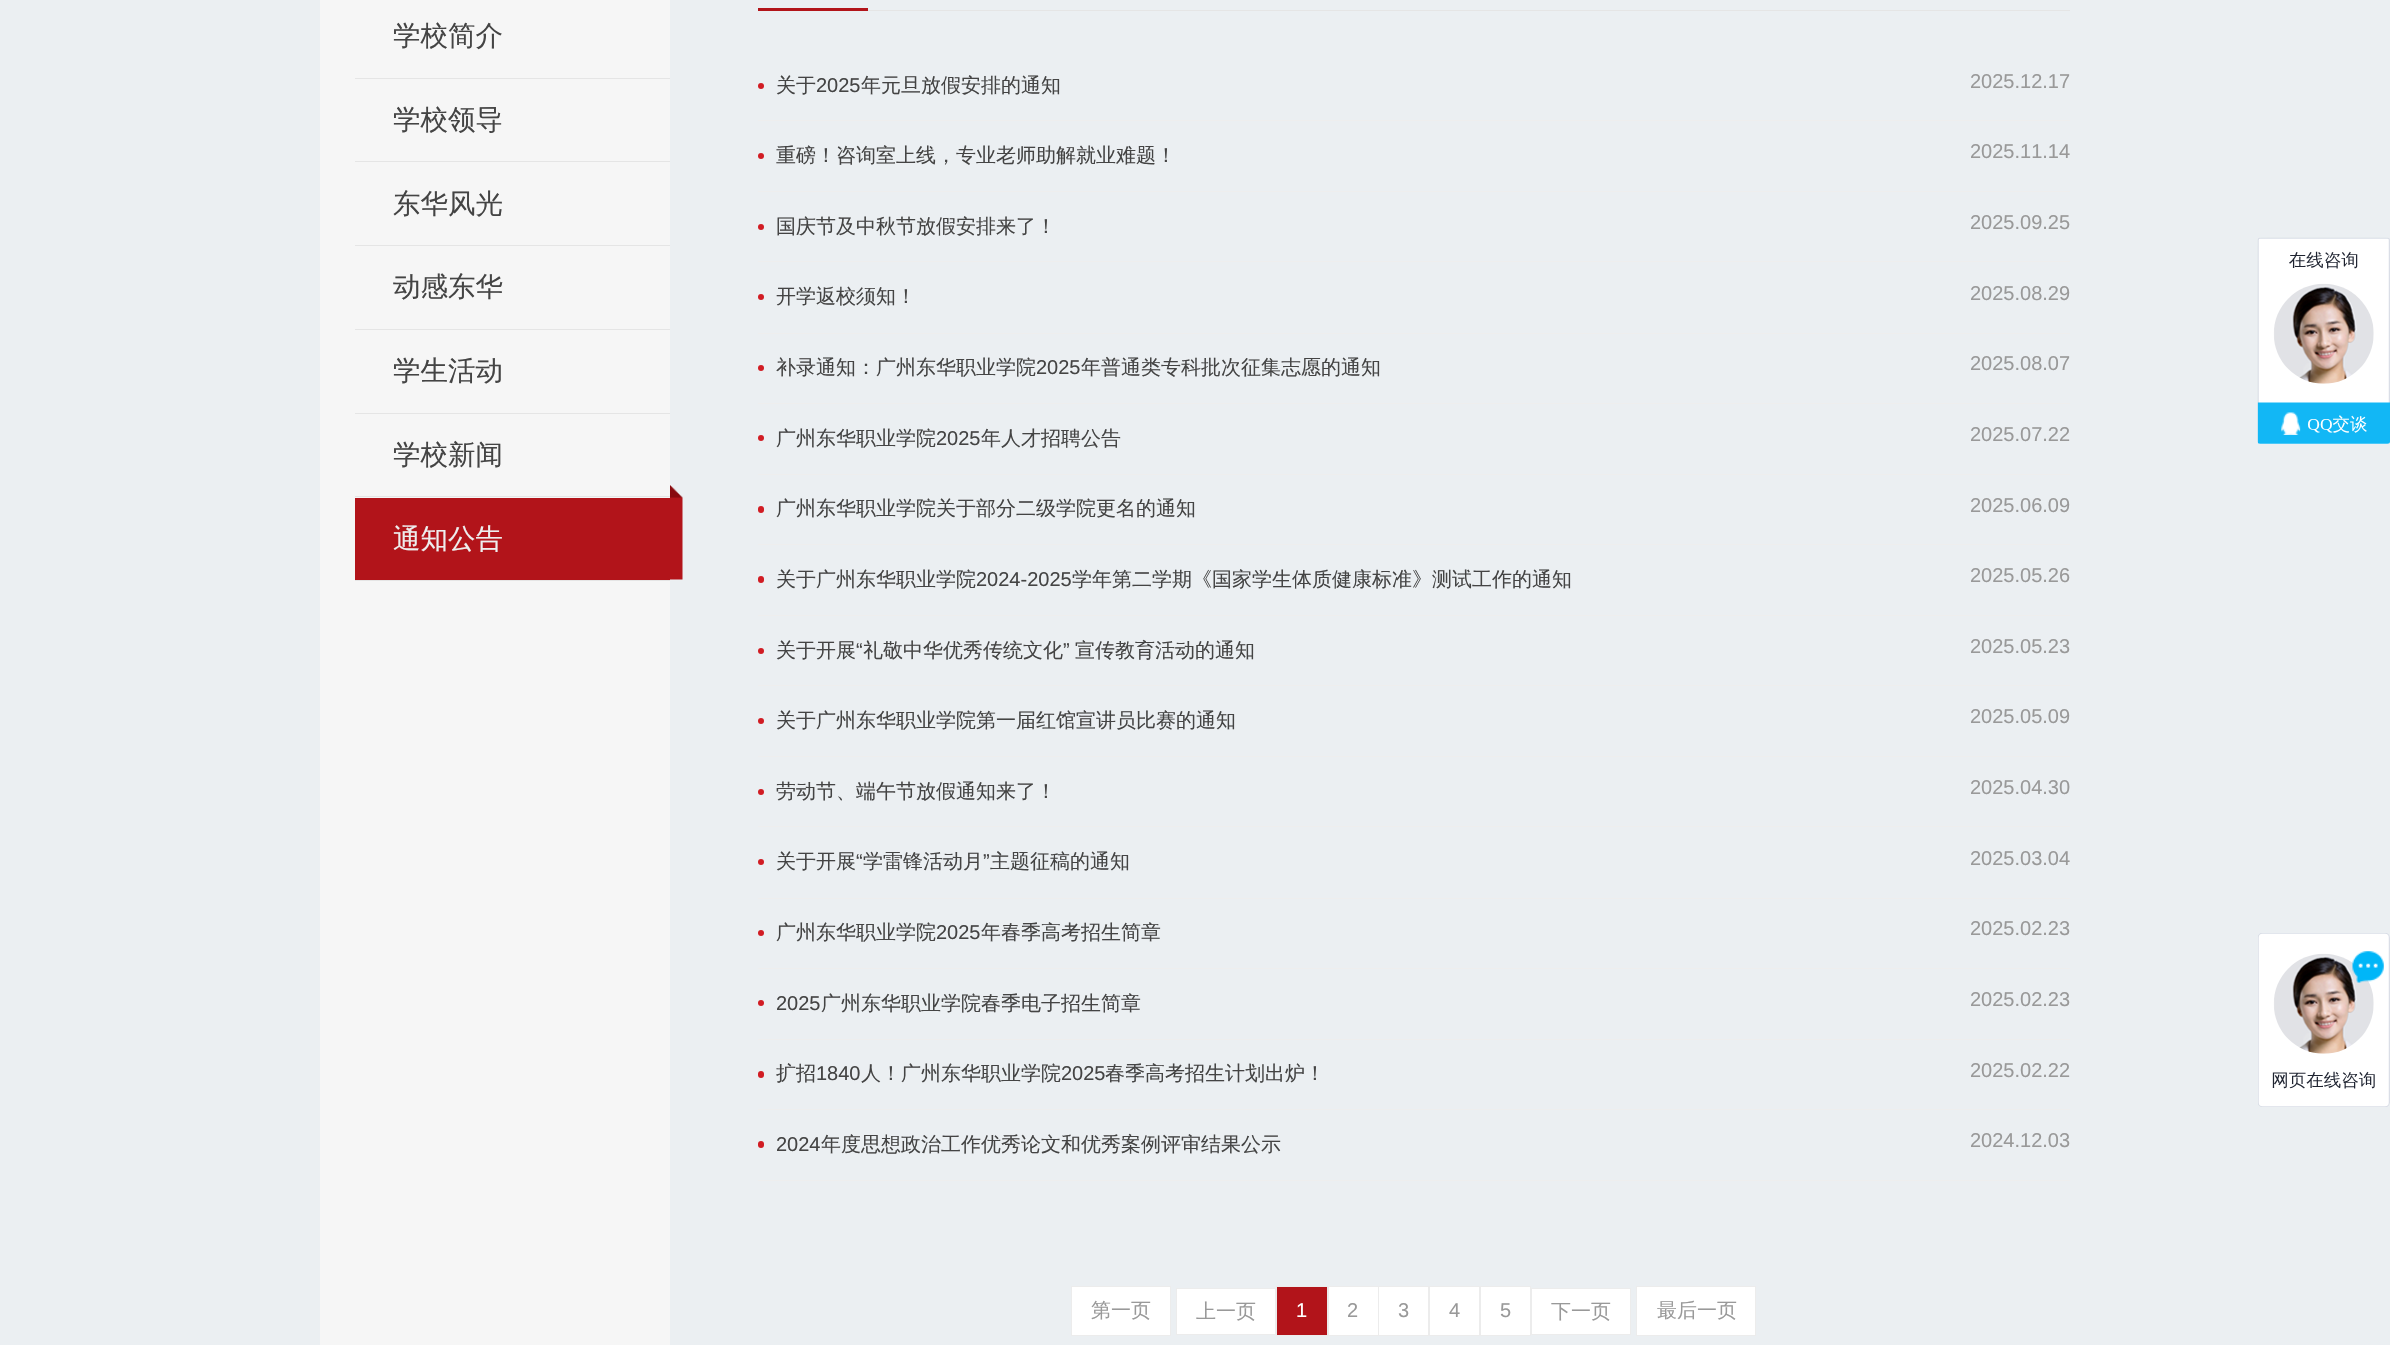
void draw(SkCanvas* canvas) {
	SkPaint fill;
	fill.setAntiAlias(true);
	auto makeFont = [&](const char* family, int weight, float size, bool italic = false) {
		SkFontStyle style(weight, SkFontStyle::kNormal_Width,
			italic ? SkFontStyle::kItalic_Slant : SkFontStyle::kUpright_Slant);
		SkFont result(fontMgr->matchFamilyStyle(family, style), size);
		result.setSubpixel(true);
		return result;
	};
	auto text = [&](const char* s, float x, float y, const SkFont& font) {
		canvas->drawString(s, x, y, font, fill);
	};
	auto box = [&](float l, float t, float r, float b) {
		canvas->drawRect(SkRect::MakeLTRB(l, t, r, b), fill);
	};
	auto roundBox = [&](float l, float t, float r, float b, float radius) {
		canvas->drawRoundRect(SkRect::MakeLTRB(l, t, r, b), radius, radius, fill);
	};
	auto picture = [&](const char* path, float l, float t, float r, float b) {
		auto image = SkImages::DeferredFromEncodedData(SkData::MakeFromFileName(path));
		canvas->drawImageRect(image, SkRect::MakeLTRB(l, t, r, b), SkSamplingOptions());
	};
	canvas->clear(0xFFEBEFF2);
	fill.setColor(0xFFF6F6F6);
	box(320, 0, 670, 1345);
	fill.setColor(0xFFE5E5E5);
	box(355, 78, 670, 79);
	box(355, 161, 670, 162);
	box(355, 245, 670, 246);
	box(355, 329, 670, 330);
	box(355, 413, 670, 414);
	box(355, 496, 670, 497);
	fill.setColor(0xFFB2141A);
	box(355, 498, 670, 580);
	fill.setColor(0xFFE5E5E5);
	box(355, 580, 670, 581);
	picture("image0.png", 670, 485, 683, 580);
	box(868, 10, 2070, 11);
	fill.setColor(0xFFB2141A);
	box(758, 8, 868, 11);
	fill.setColor(0xFFEEEEEE);
	box(758, 120, 2070, 121);
	fill.setColor(0xFFD11C23);
	canvas->drawCircle(761, 86, 3, fill);
	fill.setColor(0xFFEEEEEE);
	box(758, 191, 2070, 192);
	fill.setColor(0xFFD11C23);
	canvas->drawCircle(761, 156, 3, fill);
	fill.setColor(0xFFEEEEEE);
	box(758, 261, 2070, 262);
	fill.setColor(0xFFD11C23);
	canvas->drawCircle(761, 227, 3, fill);
	fill.setColor(0xFFEEEEEE);
	box(758, 333, 2070, 334);
	fill.setColor(0xFFD11C23);
	canvas->drawCircle(761, 297, 3, fill);
	fill.setColor(0xFFEEEEEE);
	box(758, 403, 2070, 404);
	fill.setColor(0xFFD11C23);
	canvas->drawCircle(761, 368, 3, fill);
	fill.setColor(0xFFEEEEEE);
	box(758, 474, 2070, 475);
	fill.setColor(0xFFD11C23);
	canvas->drawCircle(761, 438, 3, fill);
	fill.setColor(0xFFEEEEEE);
	box(758, 544, 2070, 545);
	fill.setColor(0xFFD11C23);
	roundBox(758, 506, 764, 513, 3);
	fill.setColor(0xFFEEEEEE);
	box(758, 615, 2070, 616);
	fill.setColor(0xFFD11C23);
	roundBox(758, 576, 764, 583, 3);
	fill.setColor(0xFFEEEEEE);
	box(758, 685, 2070, 686);
	fill.setColor(0xFFD11C23);
	canvas->drawCircle(761, 651, 3, fill);
	fill.setColor(0xFFEEEEEE);
	box(758, 756, 2070, 757);
	fill.setColor(0xFFD11C23);
	canvas->drawCircle(761, 721, 3, fill);
	fill.setColor(0xFFEEEEEE);
	box(758, 826, 2070, 827);
	fill.setColor(0xFFD11C23);
	canvas->drawCircle(761, 792, 3, fill);
	fill.setColor(0xFFEEEEEE);
	box(758, 898, 2070, 899);
	fill.setColor(0xFFD11C23);
	canvas->drawCircle(761, 862, 3, fill);
	fill.setColor(0xFFEEEEEE);
	box(758, 968, 2070, 969);
	fill.setColor(0xFFD11C23);
	canvas->drawCircle(761, 933, 3, fill);
	fill.setColor(0xFFEEEEEE);
	box(758, 1039, 2070, 1040);
	fill.setColor(0xFFD11C23);
	canvas->drawCircle(761, 1003, 3, fill);
	fill.setColor(0xFFEEEEEE);
	box(758, 1109, 2070, 1110);
	fill.setColor(0xFFD11C23);
	roundBox(758, 1071, 764, 1078, 3);
	fill.setColor(0xFFEEEEEE);
	box(758, 1180, 2070, 1181);
	fill.setColor(0xFFD11C23);
	roundBox(758, 1141, 764, 1148, 3);
	fill.setColor(0xFFFFFFFF);
	canvas->drawRect(SkRect::MakeLTRB(1071.5f, 1286.5f, 1170.5f, 1335.5f), fill);
	fill.setStyle(SkPaint::kStroke_Style);
	fill.setStrokeWidth(1);
	fill.setColor(0xFFECECEC);
	canvas->drawRect(SkRect::MakeLTRB(1071.5f, 1286.5f, 1170.5f, 1335.5f), fill);
	fill.setStyle(SkPaint::kFill_Style);
	fill.setColor(0xFFFFFFFF);
	canvas->drawRect(SkRect::MakeLTRB(1176.5f, 1288.5f, 1275.5f, 1334.5f), fill);
	fill.setStyle(SkPaint::kStroke_Style);
	fill.setColor(0xFFECECEC);
	canvas->drawRect(SkRect::MakeLTRB(1176.5f, 1288.5f, 1275.5f, 1334.5f), fill);
	fill.setStyle(SkPaint::kFill_Style);
	fill.setColor(0xFFB2141A);
	canvas->drawRect(SkRect::MakeLTRB(1276.5f, 1286.5f, 1327.5f, 1335.5f), fill);
	fill.setStyle(SkPaint::kStroke_Style);
	fill.setColor(0xFFECECEC);
	canvas->drawRect(SkRect::MakeLTRB(1276.5f, 1286.5f, 1327.5f, 1335.5f), fill);
	fill.setStyle(SkPaint::kFill_Style);
	fill.setColor(0xFFFFFFFF);
	canvas->drawRect(SkRect::MakeLTRB(1328.5f, 1286.5f, 1378.5f, 1335.5f), fill);
	fill.setStyle(SkPaint::kStroke_Style);
	fill.setColor(0xFFECECEC);
	canvas->drawRect(SkRect::MakeLTRB(1328.5f, 1286.5f, 1378.5f, 1335.5f), fill);
	fill.setStyle(SkPaint::kFill_Style);
	fill.setColor(0xFFFFFFFF);
	canvas->drawRect(SkRect::MakeLTRB(1378.5f, 1286.5f, 1428.5f, 1335.5f), fill);
	fill.setStyle(SkPaint::kStroke_Style);
	fill.setColor(0xFFECECEC);
	canvas->drawRect(SkRect::MakeLTRB(1378.5f, 1286.5f, 1428.5f, 1335.5f), fill);
	fill.setStyle(SkPaint::kFill_Style);
	fill.setColor(0xFFFFFFFF);
	canvas->drawRect(SkRect::MakeLTRB(1429.5f, 1286.5f, 1479.5f, 1335.5f), fill);
	fill.setStyle(SkPaint::kStroke_Style);
	fill.setColor(0xFFECECEC);
	canvas->drawRect(SkRect::MakeLTRB(1429.5f, 1286.5f, 1479.5f, 1335.5f), fill);
	fill.setStyle(SkPaint::kFill_Style);
	fill.setColor(0xFFFFFFFF);
	canvas->drawRect(SkRect::MakeLTRB(1480.5f, 1286.5f, 1530.5f, 1335.5f), fill);
	fill.setStyle(SkPaint::kStroke_Style);
	fill.setColor(0xFFECECEC);
	canvas->drawRect(SkRect::MakeLTRB(1480.5f, 1286.5f, 1530.5f, 1335.5f), fill);
	fill.setStyle(SkPaint::kFill_Style);
	fill.setColor(0xFFFFFFFF);
	canvas->drawRect(SkRect::MakeLTRB(1531.5f, 1288.5f, 1630.5f, 1334.5f), fill);
	fill.setStyle(SkPaint::kStroke_Style);
	fill.setColor(0xFFECECEC);
	canvas->drawRect(SkRect::MakeLTRB(1531.5f, 1288.5f, 1630.5f, 1334.5f), fill);
	fill.setStyle(SkPaint::kFill_Style);
	fill.setColor(0xFFFFFFFF);
	canvas->drawRect(SkRect::MakeLTRB(1636.5f, 1286.5f, 1755.5f, 1335.5f), fill);
	fill.setStyle(SkPaint::kStroke_Style);
	fill.setColor(0xFFECECEC);
	canvas->drawRect(SkRect::MakeLTRB(1636.5f, 1286.5f, 1755.5f, 1335.5f), fill);
	picture("image1.png", 2257, 237, 2390, 444);
	picture("image2.png", 2258, 933, 2390, 1107);
	fill.setStyle(SkPaint::kFill_Style);
	fill.setColor(0xFFDFE4EB);
	box(2387, 1106, 2388, 1107);
	auto font1 = makeFont("WenQuanYi Zen Hei", 500, 27.5f);
	fill.setColor(0xFF444444);
	text("学校简介", 393, 45, font1);
	text("学校领导", 393, 129, font1);
	text("东华风光", 393, 213, font1);
	text("动感东华", 393, 296, font1);
	text("学生活动", 393, 380, font1);
	text("学校新闻", 393, 464, font1);
	fill.setColor(0xFFEEEEEE);
	text("通知公告", 393, 548, font1);
	auto font2 = makeFont("WenQuanYi Zen Hei", 500, 20);
	fill.setColor(0xFF444444);
	text("关于", 776, 92, font2);
	auto font3 = makeFont("Liberation Sans", 400, 20);
	text("2025", 816, 92, font3);
	text("年元旦放假安排的通知", 861, 92, font2);
	fill.setColor(0xFF999999);
	text("2025.12.17", 1970, 88, font3);
	fill.setColor(0xFF444444);
	text("重磅！咨询室上线，专业老师助解就业难题！", 776, 162, font2);
	fill.setColor(0xFF999999);
	text("2025.11.14", 1970, 158, font3);
	fill.setColor(0xFF444444);
	text("国庆节及中秋节放假安排来了！", 776, 233, font2);
	fill.setColor(0xFF999999);
	text("2025.09.25", 1970, 229, font3);
	fill.setColor(0xFF444444);
	text("开学返校须知！", 776, 303, font2);
	fill.setColor(0xFF999999);
	text("2025.08.29", 1970, 300, font3);
	fill.setColor(0xFF444444);
	text("补录通知：广州东华职业学院", 776, 374, font2);
	text("2025", 1036, 374, font3);
	text("年普通类专科批次征集志愿的通知", 1081, 374, font2);
	fill.setColor(0xFF999999);
	text("2025.08.07", 1970, 370, font3);
	fill.setColor(0xFF444444);
	text("广州东华职业学院", 776, 445, font2);
	text("2025", 936, 445, font3);
	text("年人才招聘公告", 981, 445, font2);
	fill.setColor(0xFF999999);
	text("2025.07.22", 1970, 441, font3);
	fill.setColor(0xFF444444);
	text("广州东华职业学院关于部分二级学院更名的通知", 776, 515, font2);
	fill.setColor(0xFF999999);
	text("2025.06.09", 1970, 512, font3);
	fill.setColor(0xFF444444);
	text("关于广州东华职业学院", 776, 586, font2);
	text("2024-2025", 976, 586, font3);
	text("学年第二学期《国家学生体质健康标准》测试工作的通知", 1072, 586, font2);
	fill.setColor(0xFF999999);
	text("2025.05.26", 1970, 582, font3);
	fill.setColor(0xFF444444);
	text("关于开展", 776, 657, font2);
	text("“", 856, 657, font3);
	text("礼敬中华优秀传统文化", 863, 657, font2);
	text("”", 1063, 657, font3);
	text("宣传教育活动的通知", 1075, 657, font2);
	fill.setColor(0xFF999999);
	text("2025.05.23", 1970, 653, font3);
	fill.setColor(0xFF444444);
	text("关于广州东华职业学院第一届红馆宣讲员比赛的通知", 776, 727, font2);
	fill.setColor(0xFF999999);
	text("2025.05.09", 1970, 723, font3);
	fill.setColor(0xFF444444);
	text("劳动节、端午节放假通知来了！", 776, 798, font2);
	fill.setColor(0xFF999999);
	text("2025.04.30", 1970, 794, font3);
	fill.setColor(0xFF444444);
	text("关于开展", 776, 868, font2);
	text("“", 856, 868, font3);
	text("学雷锋活动月", 863, 868, font2);
	text("”", 983, 868, font3);
	text("主题征稿的通知", 990, 868, font2);
	fill.setColor(0xFF999999);
	text("2025.03.04", 1970, 865, font3);
	fill.setColor(0xFF444444);
	text("广州东华职业学院", 776, 939, font2);
	text("2025", 936, 939, font3);
	text("年春季高考招生简章", 981, 939, font2);
	fill.setColor(0xFF999999);
	text("2025.02.23", 1970, 935, font3);
	fill.setColor(0xFF444444);
	text("2025", 776, 1010, font3);
	text("广州东华职业学院春季电子招生简章", 821, 1010, font2);
	fill.setColor(0xFF999999);
	text("2025.02.23", 1970, 1006, font3);
	fill.setColor(0xFF444444);
	text("扩招", 776, 1080, font2);
	text("1840", 816, 1080, font3);
	text("人！广州东华职业学院", 861, 1080, font2);
	text("2025", 1061, 1080, font3);
	text("春季高考招生计划出炉！", 1105, 1080, font2);
	fill.setColor(0xFF999999);
	text("2025.02.22", 1970, 1077, font3);
	fill.setColor(0xFF444444);
	text("2024", 776, 1151, font3);
	text("年度思想政治工作优秀论文和优秀案例评审结果公示", 821, 1151, font2);
	fill.setColor(0xFF999999);
	text("2024.12.03", 1970, 1147, font3);
	text("第一页", 1091, 1317, font2);
	text("上一页", 1196, 1318, font2);
	fill.setColor(0xFFFFFFFF);
	text("1", 1296, 1317, font3);
	fill.setColor(0xFF999999);
	text("2", 1347, 1317, font3);
	text("3", 1398, 1317, font3);
	text("4", 1449, 1317, font3);
	text("5", 1500, 1317, font3);
	text("下一页", 1551, 1318, font2);
	text("最后一页", 1657, 1317, font2);
}
